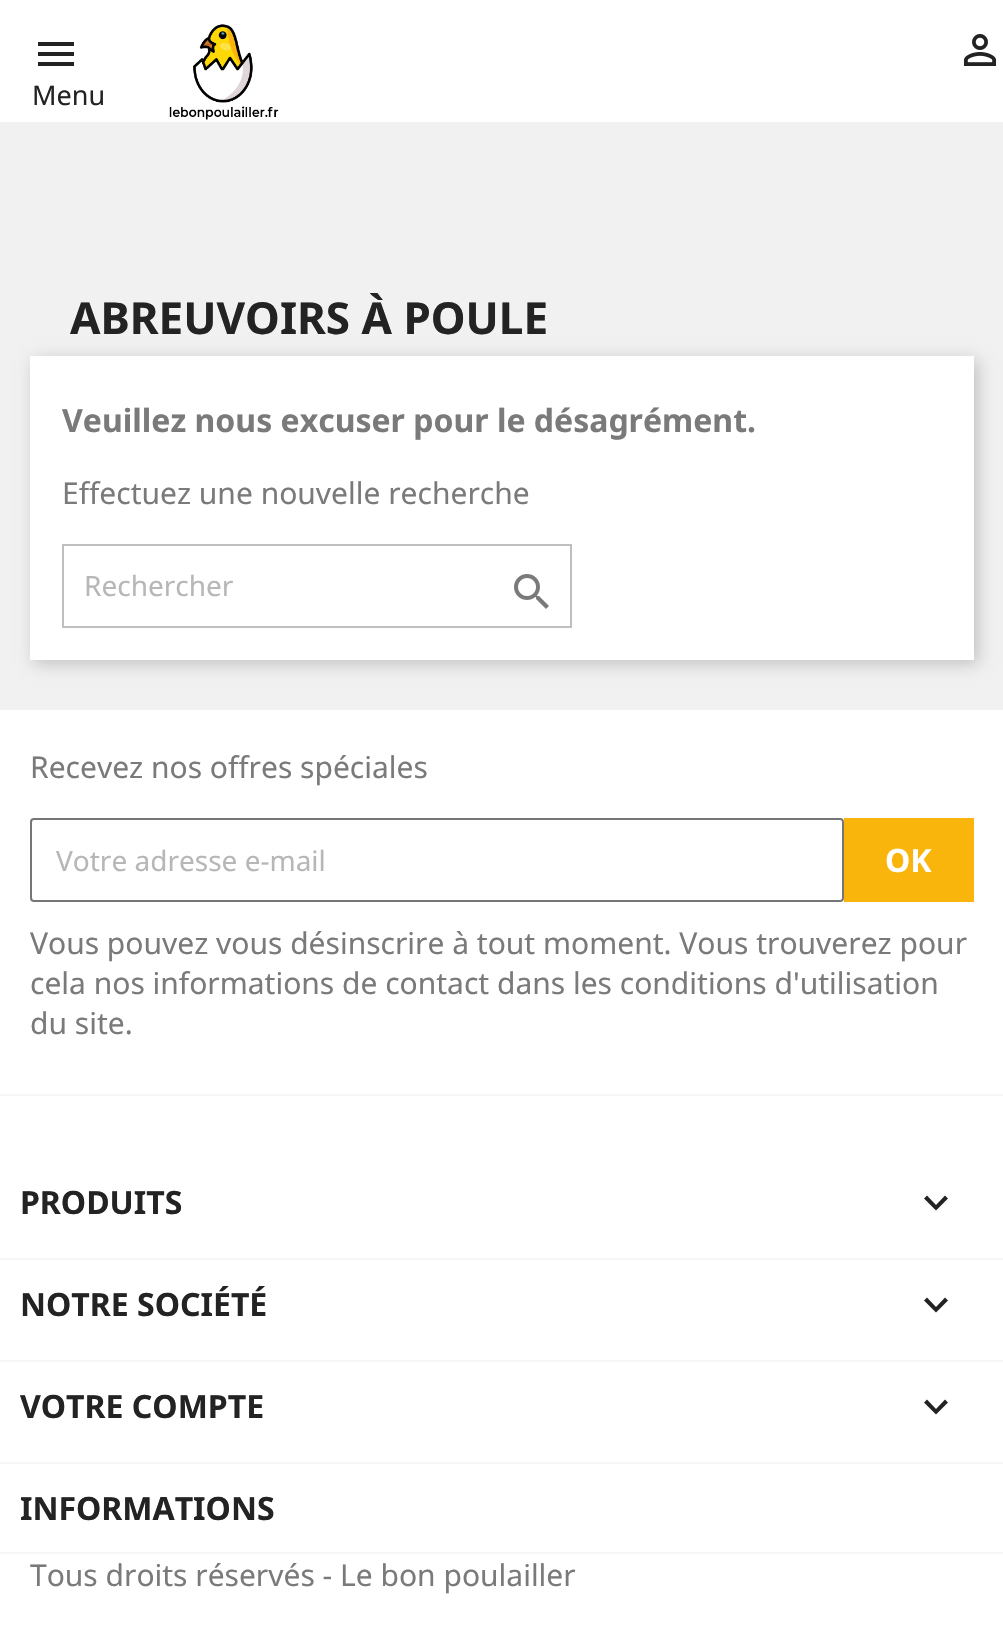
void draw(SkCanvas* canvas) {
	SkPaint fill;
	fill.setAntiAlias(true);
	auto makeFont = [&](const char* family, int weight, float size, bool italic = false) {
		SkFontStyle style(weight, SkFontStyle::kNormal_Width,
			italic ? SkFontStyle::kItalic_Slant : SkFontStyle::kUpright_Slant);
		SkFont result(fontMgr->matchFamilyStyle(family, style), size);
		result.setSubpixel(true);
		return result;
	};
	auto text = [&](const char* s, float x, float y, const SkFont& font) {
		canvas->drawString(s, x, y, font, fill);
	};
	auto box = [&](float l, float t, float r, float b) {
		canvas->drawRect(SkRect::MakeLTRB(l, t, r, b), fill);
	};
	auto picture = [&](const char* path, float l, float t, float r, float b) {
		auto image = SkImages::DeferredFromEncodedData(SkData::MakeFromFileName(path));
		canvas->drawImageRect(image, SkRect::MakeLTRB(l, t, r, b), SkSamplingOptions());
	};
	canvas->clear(0xFFFFFFFF);
	fill.setColor(0xFFF1F1F1);
	box(0, 122, 1003, 710);
	picture("image0.png", 169, 24, 279, 120);
	picture("image1.png", 963, 34, 997, 66);
	fill.setColor(0xFF232323);
	canvas->drawPath(SkPathBuilder().moveTo(38, 42).lineTo(74, 42).lineTo(74, 46).lineTo(38, 46).close().moveTo(38, 56).lineTo(38, 52).lineTo(74, 52).lineTo(74, 56).close().moveTo(38, 66).lineTo(38, 62).lineTo(74, 62).lineTo(74, 66).close().detach(), fill);
	fill.setColor(0x33000000);
	fill.setMaskFilter(SkMaskFilter::MakeBlur(kNormal_SkBlurStyle, 8));
	canvas->drawRect(SkRect::MakeLTRB(34, 360, 978, 664), fill);
	fill.setMaskFilter(nullptr);
	fill.setColor(0xFFFFFFFF);
	box(30, 356, 974, 660);
	fill.setStyle(SkPaint::kStroke_Style);
	fill.setStrokeWidth(2);
	fill.setColor(0xFFBFBFBF);
	canvas->drawRect(SkRect::MakeLTRB(63, 545, 571, 627), fill);
	picture("image2.png", 514, 574, 549, 609);
	fill.setStyle(SkPaint::kFill_Style);
	fill.setColor(0xFFF6F6F6);
	box(0, 1094, 1003, 1096);
	fill.setStyle(SkPaint::kStroke_Style);
	fill.setColor(0xFF767676);
	canvas->drawRoundRect(SkRect::MakeLTRB(31, 819, 843, 901), 3, 3, fill);
	fill.setStyle(SkPaint::kFill_Style);
	fill.setColor(0xFFF9B50B);
	box(844, 818, 974, 902);
	fill.setColor(0xFFF6F6F6);
	box(0, 1258, 1003, 1260);
	fill.setColor(0xFF232323);
	canvas->drawPath(SkPathBuilder().moveTo(927, 1195.5f).lineTo(936, 1205).lineTo(945, 1195.5f).lineTo(948, 1198.5f).lineTo(936, 1210.5f).lineTo(924, 1198.5f).close().detach(), fill);
	fill.setColor(0xFFF6F6F6);
	box(0, 1360, 1003, 1362);
	fill.setColor(0xFF232323);
	canvas->drawPath(SkPathBuilder().moveTo(927, 1297.5f).lineTo(936, 1307).lineTo(945, 1297.5f).lineTo(948, 1300.5f).lineTo(936, 1312.5f).lineTo(924, 1300.5f).close().detach(), fill);
	fill.setColor(0xFFF6F6F6);
	box(0, 1462, 1003, 1464);
	fill.setColor(0xFF232323);
	canvas->drawPath(SkPathBuilder().moveTo(927, 1399.5f).lineTo(936, 1409).lineTo(945, 1399.5f).lineTo(948, 1402.5f).lineTo(936, 1414.5f).lineTo(924, 1402.5f).close().detach(), fill);
	fill.setColor(0xFFF6F6F6);
	box(0, 1552, 1003, 1554);
	auto font1 = makeFont("Noto Sans", 400, 27);
	fill.setColor(0xFF232323);
	text("Menu", 32, 105, font1);
	auto font2 = makeFont("Noto Sans", 700, 44);
	text("ABREUVOIRS À POULE", 70, 334, font2);
	auto font3 = makeFont("Noto Sans", 700, 32);
	fill.setColor(0xFF7A7A7A);
	text("Veuillez nous excuser pour le désagrément.", 62, 432, font3);
	auto font4 = makeFont("Noto Sans", 400, 30);
	text("Effectuez une nouvelle recherche", 62, 504, font4);
	auto font5 = makeFont("Noto Sans", 400, 28);
	fill.setColor(0xFFB7B7B7);
	text("Rechercher", 84, 596, font5);
	fill.setColor(0xFF7A7A7A);
	text("Recevez nos offres spéciales", 30, 778, font4);
	fill.setColor(0xFFB7B7B7);
	text("Votre adresse e-mail", 56, 871, font5);
	fill.setColor(0xFFFFFFFF);
	text("OK", 885, 872, font3);
	fill.setColor(0xFF7A7A7A);
	text("Vous pouvez vous désinscrire à tout moment. Vous trouverez pour", 30, 954, font4);
	text("cela nos informations de contact dans les conditions d'utilisation", 30, 994, font4);
	text("du site.", 30, 1034, font4);
	fill.setColor(0xFF232323);
	text("PRODUITS", 20, 1214, font3);
	text("NOTRE SOCIÉTÉ", 20, 1316, font3);
	text("VOTRE COMPTE", 20, 1418, font3);
	text("INFORMATIONS", 20, 1520, font3);
	fill.setColor(0xFF7A7A7A);
	text("Tous droits réservés - Le bon poulailler", 30, 1586, font4);
}
